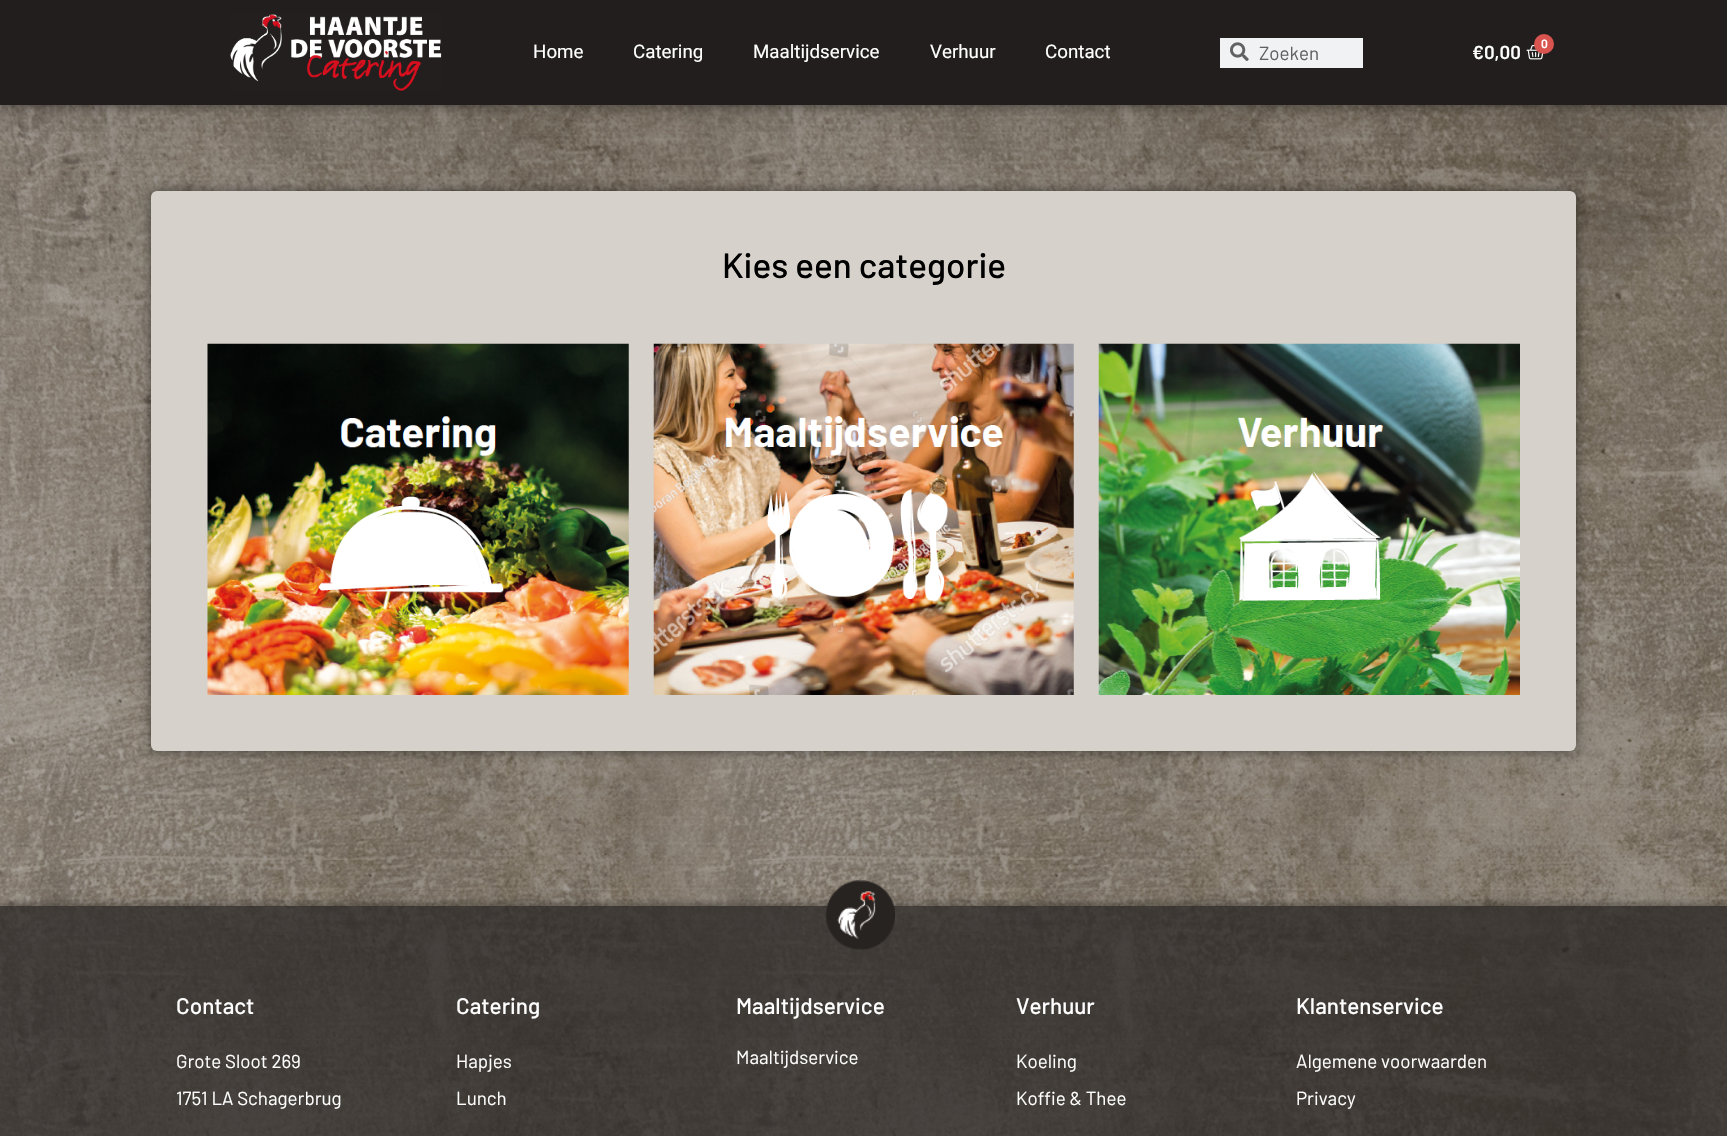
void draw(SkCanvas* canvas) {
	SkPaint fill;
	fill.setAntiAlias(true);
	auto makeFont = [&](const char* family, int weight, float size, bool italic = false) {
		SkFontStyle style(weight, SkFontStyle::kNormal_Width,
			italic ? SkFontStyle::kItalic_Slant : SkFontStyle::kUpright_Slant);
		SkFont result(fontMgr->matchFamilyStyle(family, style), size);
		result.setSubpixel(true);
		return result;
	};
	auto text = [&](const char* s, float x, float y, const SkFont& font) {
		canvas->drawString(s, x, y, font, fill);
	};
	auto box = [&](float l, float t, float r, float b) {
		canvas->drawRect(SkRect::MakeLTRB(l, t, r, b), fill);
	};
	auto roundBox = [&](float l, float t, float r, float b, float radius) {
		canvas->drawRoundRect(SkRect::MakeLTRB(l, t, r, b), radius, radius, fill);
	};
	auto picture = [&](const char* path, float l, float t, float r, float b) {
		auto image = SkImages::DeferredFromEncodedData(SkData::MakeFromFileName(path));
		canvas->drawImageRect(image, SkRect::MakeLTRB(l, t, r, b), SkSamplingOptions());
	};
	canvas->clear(0xFFFFFFFF);
	picture("image0.png", 0, 105, 1727, 907);
	fill.setColor(0x80000000);
	fill.setMaskFilter(SkMaskFilter::MakeBlur(kNormal_SkBlurStyle, 6));
	canvas->drawRect(SkRect::MakeLTRB(0, 0, 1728, 105), fill);
	fill.setMaskFilter(nullptr);
	fill.setColor(0xFF211E1D);
	box(0, 0, 1727, 105);
	picture("image1.png", 230, 14, 442, 91);
	fill.setColor(0xFFF1F2F3);
	box(1220, 38, 1363, 68);
	picture("image2.png", 1230, 42, 1249, 61);
	picture("image3.png", 1526, 45, 1544, 60);
	fill.setColor(0xFFD9534F);
	canvas->drawCircle(1544, 44, 10, fill);
	fill.setColor(0x80000000);
	fill.setMaskFilter(SkMaskFilter::MakeBlur(kNormal_SkBlurStyle, 6));
	canvas->drawRoundRect(SkRect::MakeLTRB(151, 191, 1576, 751), 6, 6, fill);
	fill.setMaskFilter(nullptr);
	fill.setColor(0xFFD6D1CA);
	roundBox(151, 191, 1576, 751, 6);
	picture("image4.png", 207, 343, 629, 695);
	picture("image5.png", 653, 343, 1074, 695);
	picture("image6.png", 1098, 343, 1520, 695);
	fill.setColor(0x80000000);
	fill.setMaskFilter(SkMaskFilter::MakeBlur(kNormal_SkBlurStyle, 6));
	canvas->drawRect(SkRect::MakeLTRB(0, 906, 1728, 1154), fill);
	fill.setMaskFilter(nullptr);
	picture("image8.png", 0, 906, 1727, 1136);
	fill.setColor(0xB0262321);
	box(0, 906, 1727, 1136);
	picture("image7.png", 825, 880, 895, 950);
	auto font1 = makeFont("Roboto", 400, 18.75f);
	fill.setColor(0xFFFFFFFF);
	text("Home", 533, 58, font1);
	text("Catering", 633, 58, font1);
	text("Maaltijdservice", 753, 58, font1);
	text("Verhuur", 930, 58, font1);
	text("Contact", 1045, 58, font1);
	auto font2 = makeFont("Barlow", 400, 18.75f);
	fill.setColor(0xFF606161);
	text("Zoeken", 1259, 60, font2);
	auto font3 = makeFont("Barlow", 600, 12);
	fill.setColor(0xFFFFFFFF);
	text("0", 1541, 48, font3);
	auto font4 = makeFont("Barlow", 600, 18.75f);
	text("€0,00", 1472, 59, font4);
	auto font5 = makeFont("Barlow", 500, 35);
	fill.setColor(0xFF000000);
	text("Kies een categorie", 722, 278, font5);
	auto font6 = makeFont("Barlow", 500, 22.5f);
	fill.setColor(0xFFFFFFFF);
	text("Contact", 176, 1014, font6);
	text("Grote Sloot 269", 176, 1068, font2);
	text("1751 LA Schagerbrug", 176, 1105, font2);
	text("Catering", 456, 1014, font6);
	text("Hapjes", 456, 1068, font2);
	text("Lunch", 456, 1105, font2);
	text("Maaltijdservice", 736, 1014, font6);
	text("Maaltijdservice", 736, 1064, font2);
	text("Verhuur", 1016, 1014, font6);
	text("Koeling", 1016, 1068, font2);
	text("Koffie & Thee", 1016, 1105, font2);
	text("Klantenservice", 1296, 1014, font6);
	text("Algemene voorwaarden", 1296, 1068, font2);
	text("Privacy", 1296, 1105, font2);
}
